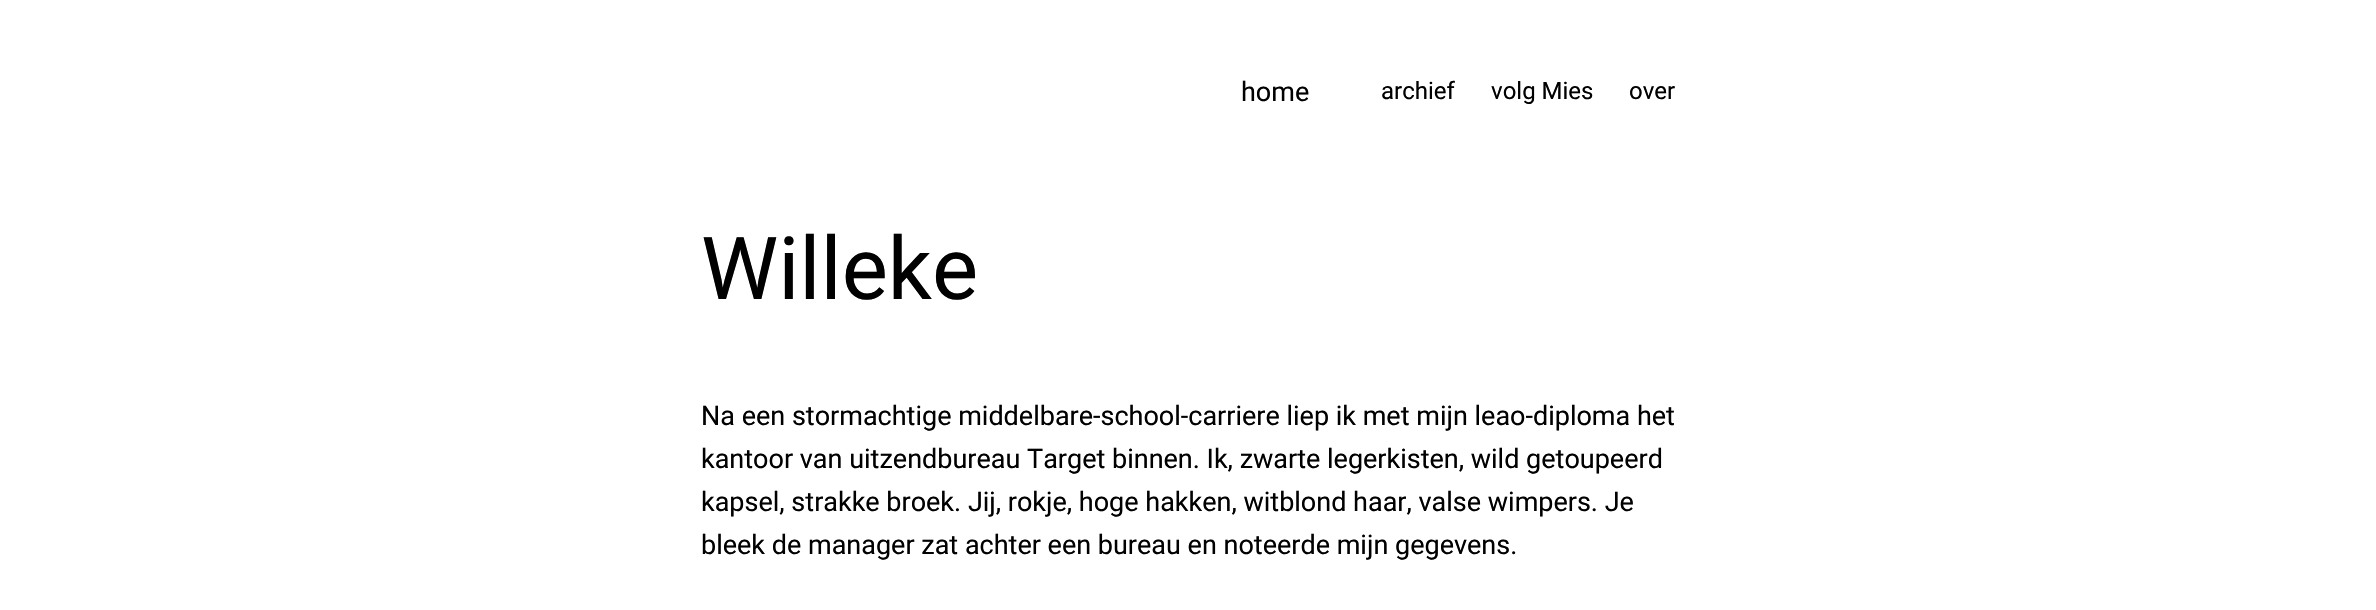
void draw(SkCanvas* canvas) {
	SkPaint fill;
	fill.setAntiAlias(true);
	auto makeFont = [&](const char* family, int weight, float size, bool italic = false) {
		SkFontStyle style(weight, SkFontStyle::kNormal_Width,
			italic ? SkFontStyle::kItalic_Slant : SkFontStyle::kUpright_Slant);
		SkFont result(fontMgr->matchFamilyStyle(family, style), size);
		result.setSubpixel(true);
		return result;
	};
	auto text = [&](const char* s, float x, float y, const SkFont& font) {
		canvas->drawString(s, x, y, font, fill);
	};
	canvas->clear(0xFFFFFFFF);
	auto font1 = makeFont("Roboto", 400, 27);
	fill.setColor(0xFF000000);
	text("home", 1241, 101, font1);
	auto font2 = makeFont("Roboto", 400, 24);
	text("archief", 1381, 99, font2);
	text("volg Mies", 1491, 99, font2);
	text("over", 1629, 99, font2);
	auto font3 = makeFont("Roboto", 400, 87);
	text("Willeke", 701, 299, font3);
	text("Na een stormachtige middelbare-school-carriere liep ik met mijn leao-diploma het", 701, 425, font1);
	text("kantoor van uitzendbureau Target binnen. Ik, zwarte legerkisten, wild getoupeerd", 701, 468, font1);
	text("kapsel, strakke broek. Jij, rokje, hoge hakken, witblond haar, valse wimpers. Je", 701, 511, font1);
	text("bleek de manager zat achter een bureau en noteerde mijn gegevens.", 701, 554, font1);
}
